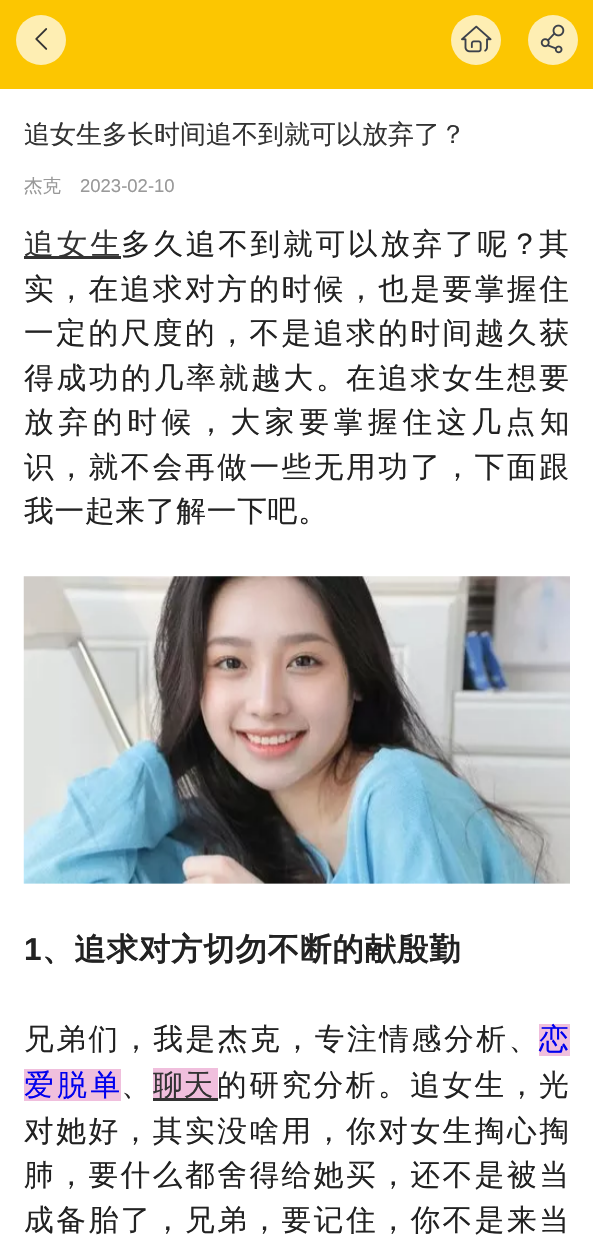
void draw(SkCanvas* canvas) {
	SkPaint fill;
	fill.setAntiAlias(true);
	auto makeFont = [&](const char* family, int weight, float size, bool italic = false) {
		SkFontStyle style(weight, SkFontStyle::kNormal_Width,
			italic ? SkFontStyle::kItalic_Slant : SkFontStyle::kUpright_Slant);
		SkFont result(fontMgr->matchFamilyStyle(family, style), size);
		result.setSubpixel(true);
		return result;
	};
	auto text = [&](const char* s, float x, float y, const SkFont& font) {
		canvas->drawString(s, x, y, font, fill);
	};
	auto spacedText = [&](const char* s, float x, float y, const SkFont& font, const SkPaint& ink, float letter, float word) {
		std::vector<SkGlyphID> glyphs(font.countText(s, strlen(s), SkTextEncoding::kUTF8));
		std::vector<float> xs(glyphs.size());
		font.textToGlyphs(s, strlen(s), SkTextEncoding::kUTF8, glyphs);
		font.getXPos(glyphs, xs, x);
		float extra = 0;
		for (size_t i = 0; i < glyphs.size(); i++) {
			xs[i] += extra;
			extra += letter + word * (glyphs[i] == font.unicharToGlyph(' '));
		}
		canvas->drawTextBlob(SkTextBlob::MakeFromPosHGlyphs(glyphs, xs, y, font), 0, 0, ink);
	};
	auto box = [&](float l, float t, float r, float b) {
		canvas->drawRect(SkRect::MakeLTRB(l, t, r, b), fill);
	};
	auto picture = [&](const char* path, float l, float t, float r, float b) {
		auto image = SkImages::DeferredFromEncodedData(SkData::MakeFromFileName(path));
		canvas->drawImageRect(image, SkRect::MakeLTRB(l, t, r, b), SkSamplingOptions());
	};
	canvas->clear(0xFFFFFFFF);
	fill.setColor(0xFFFCC601);
	box(0, 0, 593, 89);
	fill.setColor(0xFFFEEEB3);
	canvas->drawCircle(41, 40, 25, fill);
	picture("image0.png", 35, 28, 48, 50);
	canvas->drawCircle(476, 40, 25, fill);
	picture("image1.png", 461, 25, 492, 53);
	canvas->drawCircle(553, 40, 25, fill);
	picture("image2.png", 540, 24, 565, 54);
	fill.setColor(0xFF333333);
	box(24, 256, 121, 259);
	picture("image3.png", 23, 576, 570, 884);
	fill.setColor(0xFFF0BFDD);
	box(539, 1024, 570, 1056);
	box(24, 1069, 121, 1101);
	box(153, 1068, 218, 1098);
	fill.setColor(0xFF333333);
	box(153, 1098, 218, 1101);
	auto font1 = makeFont("WenQuanYi Zen Hei", 500, 26);
	text("追女生多长时间追不到就可以放弃了？", 24, 143, font1);
	auto font2 = makeFont("WenQuanYi Zen Hei", 500, 18.5f);
	fill.setColor(0xFF999999);
	text("杰克", 24, 192, font2);
	auto font3 = makeFont("Liberation Sans", 400, 18.5f);
	text("2023-02-10", 80, 192, font3);
	auto font4 = makeFont("WenQuanYi Zen Hei", 500, 29.7f);
	fill.setColor(0xFF333333);
	spacedText("追女生", 24, 254, font4, fill, 3.5f, 0);
	fill.setColor(0xFF222222);
	spacedText("多久追不到就可以放弃了呢？", 121, 254, font4, fill, 2.7f, 0);
	spacedText("其", 539, 254, font4, fill, 0.75f, 0);
	spacedText("实，在追求对方的时候，也是要掌握住", 24, 299, font4, fill, 2.5f, 0);
	spacedText("一定的尺度的，不是追求的时间越久获", 24, 343, font4, fill, 2.5f, 0);
	spacedText("得成功的几率就越大。", 24, 388, font4, fill, 2.75f, 0);
	spacedText("在追求女生想要", 346, 388, font4, fill, 2.5f, 0);
	spacedText("放弃的时候，大家要掌握住这几点知", 24, 432, font4, fill, 4.7f, 0);
	spacedText("识，就不会再做一些无用功了，下面跟", 24, 477, font4, fill, 2.5f, 0);
	spacedText("我一起来了解一下吧。", 24, 521, font4, fill, 0.75f, 0);
	auto font5 = makeFont("Liberation Sans", 700, 31.5f);
	spacedText("1", 24, 960, font5, fill, 0.75f, 0);
	auto font6 = makeFont("WenQuanYi Zen Hei", 700, 31.5f);
	spacedText("、追求对方切勿不断的献殷勤", 42, 960, font6, fill, 0.75f, 0);
	spacedText("兄弟们，我是杰克，专注情感分析、", 24, 1049, font4, fill, 2.6f, 0);
	fill.setColor(0xFF0000EE);
	spacedText("恋", 539, 1049, font4, fill, 0.75f, 0);
	spacedText("爱脱单", 24, 1095, font4, fill, 3.5f, 0);
	fill.setColor(0xFF222222);
	spacedText("、", 121, 1095, font4, fill, 0.75f, 0);
	fill.setColor(0xFF333333);
	spacedText("聊天", 153, 1095, font4, fill, 0.75f, 0);
	fill.setColor(0xFF222222);
	spacedText("的研究分析。追女生，光", 217, 1095, font4, fill, 2.5f, 0);
	spacedText("对她好，其实没啥用，你对女生掏心掏", 24, 1141, font4, fill, 2.5f, 0);
	spacedText("肺，要什么都舍得给她买，还不是被当", 24, 1185, font4, fill, 2.5f, 0);
	spacedText("成备胎了，兄弟，要记住，你不是来当", 24, 1230, font4, fill, 2.5f, 0);
}
